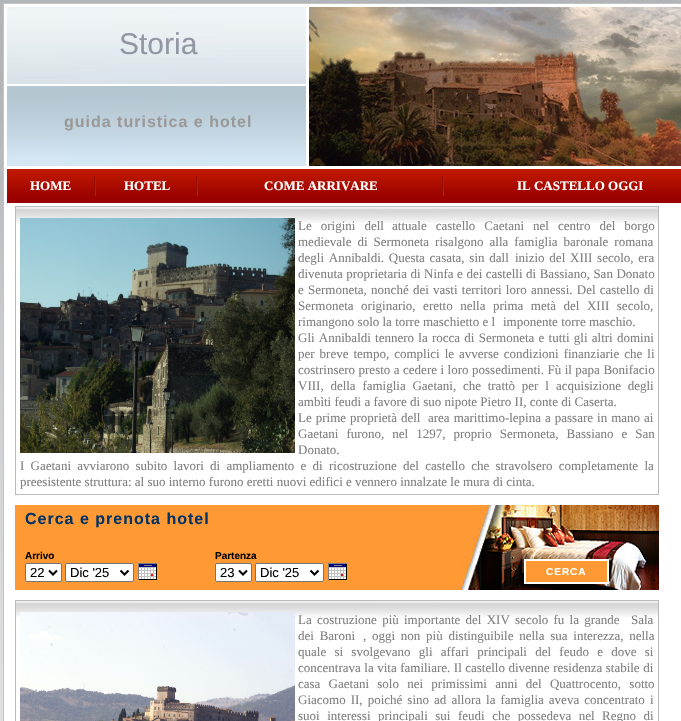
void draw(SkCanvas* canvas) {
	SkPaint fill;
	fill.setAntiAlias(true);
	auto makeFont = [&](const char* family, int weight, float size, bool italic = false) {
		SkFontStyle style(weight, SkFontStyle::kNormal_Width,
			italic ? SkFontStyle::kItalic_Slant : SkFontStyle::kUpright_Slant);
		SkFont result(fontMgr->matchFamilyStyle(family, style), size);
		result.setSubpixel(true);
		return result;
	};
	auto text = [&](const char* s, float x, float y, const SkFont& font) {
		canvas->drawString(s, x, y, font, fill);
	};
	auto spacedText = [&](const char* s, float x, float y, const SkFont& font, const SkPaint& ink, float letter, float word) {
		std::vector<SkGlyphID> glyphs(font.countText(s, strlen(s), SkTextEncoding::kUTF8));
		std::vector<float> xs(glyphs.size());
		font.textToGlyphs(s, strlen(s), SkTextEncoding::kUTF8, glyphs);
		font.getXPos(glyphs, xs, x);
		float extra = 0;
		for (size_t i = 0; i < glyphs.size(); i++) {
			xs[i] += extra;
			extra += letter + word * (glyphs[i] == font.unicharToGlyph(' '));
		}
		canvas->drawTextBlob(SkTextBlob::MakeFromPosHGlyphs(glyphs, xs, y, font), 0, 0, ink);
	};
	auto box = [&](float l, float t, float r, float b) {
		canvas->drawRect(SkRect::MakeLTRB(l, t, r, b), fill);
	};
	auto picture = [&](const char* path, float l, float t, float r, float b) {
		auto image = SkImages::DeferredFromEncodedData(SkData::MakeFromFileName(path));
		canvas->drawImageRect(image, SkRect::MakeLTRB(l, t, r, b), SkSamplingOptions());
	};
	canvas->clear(0xFFFFFFFF);
	picture("image0.png", 0, 0, 681, 721);
	fill.setColor(0xFFFFFFFF);
	canvas->drawRect(SkRect::MakeLTRB(3.5f, 3.5f, 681.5f, 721.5f), fill);
	fill.setStyle(SkPaint::kStroke_Style);
	fill.setStrokeWidth(1);
	fill.setColor(0xFFC3C3C3);
	canvas->drawRect(SkRect::MakeLTRB(3.5f, 3.5f, 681.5f, 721.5f), fill);
	picture("image1.png", 7, 7, 306, 166);
	picture("image2.png", 309, 7, 681, 166);
	picture("image3.png", 7, 169, 681, 203);
	picture("image4.png", 94, 176, 96, 196);
	picture("image4.png", 196, 176, 198, 196);
	picture("image4.png", 442, 176, 444, 196);
	picture("image5.png", 16, 206, 658, 223);
	fill.setStyle(SkPaint::kFill_Style);
	fill.setColor(0xFFBBBBBB);
	box(658, 206, 659, 495);
	box(15, 494, 659, 495);
	box(15, 206, 16, 495);
	picture("image6.png", 20, 218, 295, 453);
	picture("image7.png", 15, 505, 659, 590);
	fill.setColor(0xFFFFFFFF);
	canvas->drawRoundRect(SkRect::MakeLTRB(25.5f, 563.5f, 61.5f, 581.5f), 1.5f, 1.5f, fill);
	fill.setStyle(SkPaint::kStroke_Style);
	fill.setColor(0xFF767676);
	canvas->drawRoundRect(SkRect::MakeLTRB(25.5f, 563.5f, 61.5f, 581.5f), 1.5f, 1.5f, fill);
	fill.setStrokeWidth(2);
	fill.setColor(0xFF000000);
	canvas->drawPath(SkPathBuilder().moveTo(49, 570.5f).lineTo(53, 574.5f).lineTo(57, 570.5f).detach(), fill);
	fill.setStyle(SkPaint::kFill_Style);
	fill.setColor(0xFFFFFFFF);
	canvas->drawRoundRect(SkRect::MakeLTRB(65.5f, 563.5f, 133.5f, 581.5f), 1.5f, 1.5f, fill);
	fill.setStyle(SkPaint::kStroke_Style);
	fill.setStrokeWidth(1);
	fill.setColor(0xFF767676);
	canvas->drawRoundRect(SkRect::MakeLTRB(65.5f, 563.5f, 133.5f, 581.5f), 1.5f, 1.5f, fill);
	fill.setStrokeWidth(2);
	fill.setColor(0xFF000000);
	canvas->drawPath(SkPathBuilder().moveTo(120.5f, 570.5f).lineTo(124.5f, 574.5f).lineTo(128.5f, 570.5f).detach(), fill);
	picture("image8.png", 138, 563, 157, 580);
	fill.setStyle(SkPaint::kFill_Style);
	fill.setColor(0xFFFFFFFF);
	canvas->drawRoundRect(SkRect::MakeLTRB(215.5f, 563.5f, 251.5f, 581.5f), 1.5f, 1.5f, fill);
	fill.setStyle(SkPaint::kStroke_Style);
	fill.setStrokeWidth(1);
	fill.setColor(0xFF767676);
	canvas->drawRoundRect(SkRect::MakeLTRB(215.5f, 563.5f, 251.5f, 581.5f), 1.5f, 1.5f, fill);
	fill.setStrokeWidth(2);
	fill.setColor(0xFF000000);
	canvas->drawPath(SkPathBuilder().moveTo(239, 570.5f).lineTo(243, 574.5f).lineTo(247, 570.5f).detach(), fill);
	fill.setStyle(SkPaint::kFill_Style);
	fill.setColor(0xFFFFFFFF);
	canvas->drawRoundRect(SkRect::MakeLTRB(255.5f, 563.5f, 323.5f, 581.5f), 1.5f, 1.5f, fill);
	fill.setStyle(SkPaint::kStroke_Style);
	fill.setStrokeWidth(1);
	fill.setColor(0xFF767676);
	canvas->drawRoundRect(SkRect::MakeLTRB(255.5f, 563.5f, 323.5f, 581.5f), 1.5f, 1.5f, fill);
	fill.setStrokeWidth(2);
	fill.setColor(0xFF000000);
	canvas->drawPath(SkPathBuilder().moveTo(310.5f, 570.5f).lineTo(314.5f, 574.5f).lineTo(318.5f, 570.5f).detach(), fill);
	picture("image8.png", 328, 563, 347, 580);
	fill.setStyle(SkPaint::kFill_Style);
	fill.setColor(0xFFFF9933);
	canvas->drawRect(SkRect::MakeLTRB(525, 560, 608, 583), fill);
	fill.setStyle(SkPaint::kStroke_Style);
	fill.setColor(0xFFFFFFFF);
	canvas->drawRect(SkRect::MakeLTRB(525, 560, 608, 583), fill);
	picture("image5.png", 16, 600, 658, 617);
	fill.setStyle(SkPaint::kFill_Style);
	fill.setColor(0xFFBBBBBB);
	box(658, 600, 659, 721);
	box(15, 600, 16, 721);
	picture("image9.png", 20, 612, 295, 721);
	auto font1 = makeFont("Liberation Sans", 400, 30);
	fill.setColor(0xFF9397A4);
	text("Storia", 119, 54, font1);
	auto font2 = makeFont("Liberation Sans", 700, 16);
	fill.setColor(0xFF999999);
	spacedText("guida turistica e hotel", 64, 127, font2, fill, 1, 0);
	auto font3 = makeFont("Liberation Serif", 700, 13);
	fill.setColor(0xFFFFFFFF);
	text("HOME", 30, 190, font3);
	text("HOTEL", 124, 190, font3);
	text("COME ARRIVARE", 264, 190, font3);
	text("IL CASTELLO OGGI", 517, 190, font3);
	auto font4 = makeFont("Liberation Serif", 400, 13);
	fill.setColor(0xFF808080);
	spacedText("Le origini dell", 298, 230, font4, fill, 0, 5.75f);
	spacedText("attuale castello Caetani nel centro del borgo", 392, 230, font4, fill, 0, 5.75f);
	spacedText("medievale di Sermoneta risalgono alla famiglia baronale romana", 298, 246, font4, fill, 0, 2.75f);
	spacedText("degli Annibaldi. Questa casata, sin dall", 298, 262, font4, fill, 0, 1.5f);
	spacedText("inizio del XIII secolo, era", 515, 262, font4, fill, 0, 1.5f);
	spacedText("divenuta proprietaria di Ninfa e dei castelli di Bassiano, San Donato", 298, 278, font4, fill, 0, 0.25f);
	spacedText("e Sermoneta, nonché dei vasti territori loro annessi. Del castello di", 298, 294, font4, fill, 0, 1);
	spacedText("Sermoneta originario, eretto nella prima metà del XIII secolo,", 298, 310, font4, fill, 0, 4.25f);
	text("rimangono solo la torre maschietto e l", 298, 326, font4);
	text("imponente torre maschio.", 503, 326, font4);
	spacedText("Gli Annibaldi tennero la rocca di Sermoneta e tutti gli altri domini", 298, 342, font4, fill, 0, 1);
	spacedText("per breve tempo, complici le avverse condizioni finanziarie che li", 298, 358, font4, fill, 0, 1.75f);
	spacedText("costrinsero presto a cedere i loro possedimenti. Fù il papa Bonifacio", 298, 374, font4, fill, 0, 0.25f);
	spacedText("VIII, della famiglia Gaetani, che trattò per l", 298, 390, font4, fill, 0, 3.5f);
	spacedText("acquisizione degli", 556, 390, font4, fill, 0, 3.5f);
	text("ambìti feudi a favore di suo nipote Pietro II, conte di Caserta.", 298, 406, font4);
	spacedText("Le prime proprietà dell", 298, 422, font4, fill, 0, 0.75f);
	spacedText("area marittimo-lepina a passare in mano ai", 428, 422, font4, fill, 0, 0.75f);
	spacedText("Gaetani furono, nel 1297, proprio Sermoneta, Bassiano e San", 298, 438, font4, fill, 0, 4.75f);
	text("Donato.", 298, 454, font4);
	spacedText("I Gaetani avviarono subito lavori di ampliamento e di ricostruzione del castello che stravolsero completamente la", 20, 470, font4, fill, 0, 3);
	text("preesistente struttura: al suo interno furono eretti nuovi edifici e vennero innalzate le mura di cinta.", 20, 486, font4);
	fill.setColor(0xFF003366);
	spacedText("Cerca e prenota hotel", 25, 524, font2, fill, 1, 0);
	auto font5 = makeFont("Liberation Sans", 700, 10);
	fill.setColor(0xFF000000);
	text("Arrivo", 25, 559, font5);
	auto font6 = makeFont("Liberation Sans", 400, 13);
	text("22", 30, 577, font6);
	text("Dic '25", 70, 577, font6);
	text("Partenza", 215, 559, font5);
	text("23", 220, 577, font6);
	text("Dic '25", 260, 577, font6);
	fill.setColor(0xFFFFFFFF);
	spacedText("CERCA", 546, 575, font5, fill, 1, 0);
	fill.setColor(0xFF808080);
	spacedText("La costruzione più importante del XIV secolo fu la grande", 298, 624, font4, fill, 0, 2);
	text("Sala", 631, 624, font4);
	spacedText("dei Baroni", 298, 640, font4, fill, 0, 2.5f);
	spacedText(", oggi non più distinguibile nella sua interezza, nella", 363, 640, font4, fill, 0, 2.5f);
	spacedText("quale si svolgevano gli affari principali del feudo e dove si", 298, 656, font4, fill, 0, 5);
	spacedText("concentrava la vita familiare. Il castello divenne residenza stabile di", 298, 672, font4, fill, 0, 0.25f);
	spacedText("casa Gaetani solo nei primissimi anni del Quattrocento, sotto", 298, 688, font4, fill, 0, 5);
	spacedText("Giacomo II, poiché sino ad allora la famiglia aveva concentrato i", 298, 704, font4, fill, 0, 1.8f);
	spacedText("suoi interessi principali sui feudi che possedeva nel Regno di", 298, 720, font4, fill, 0, 4.25f);
}
